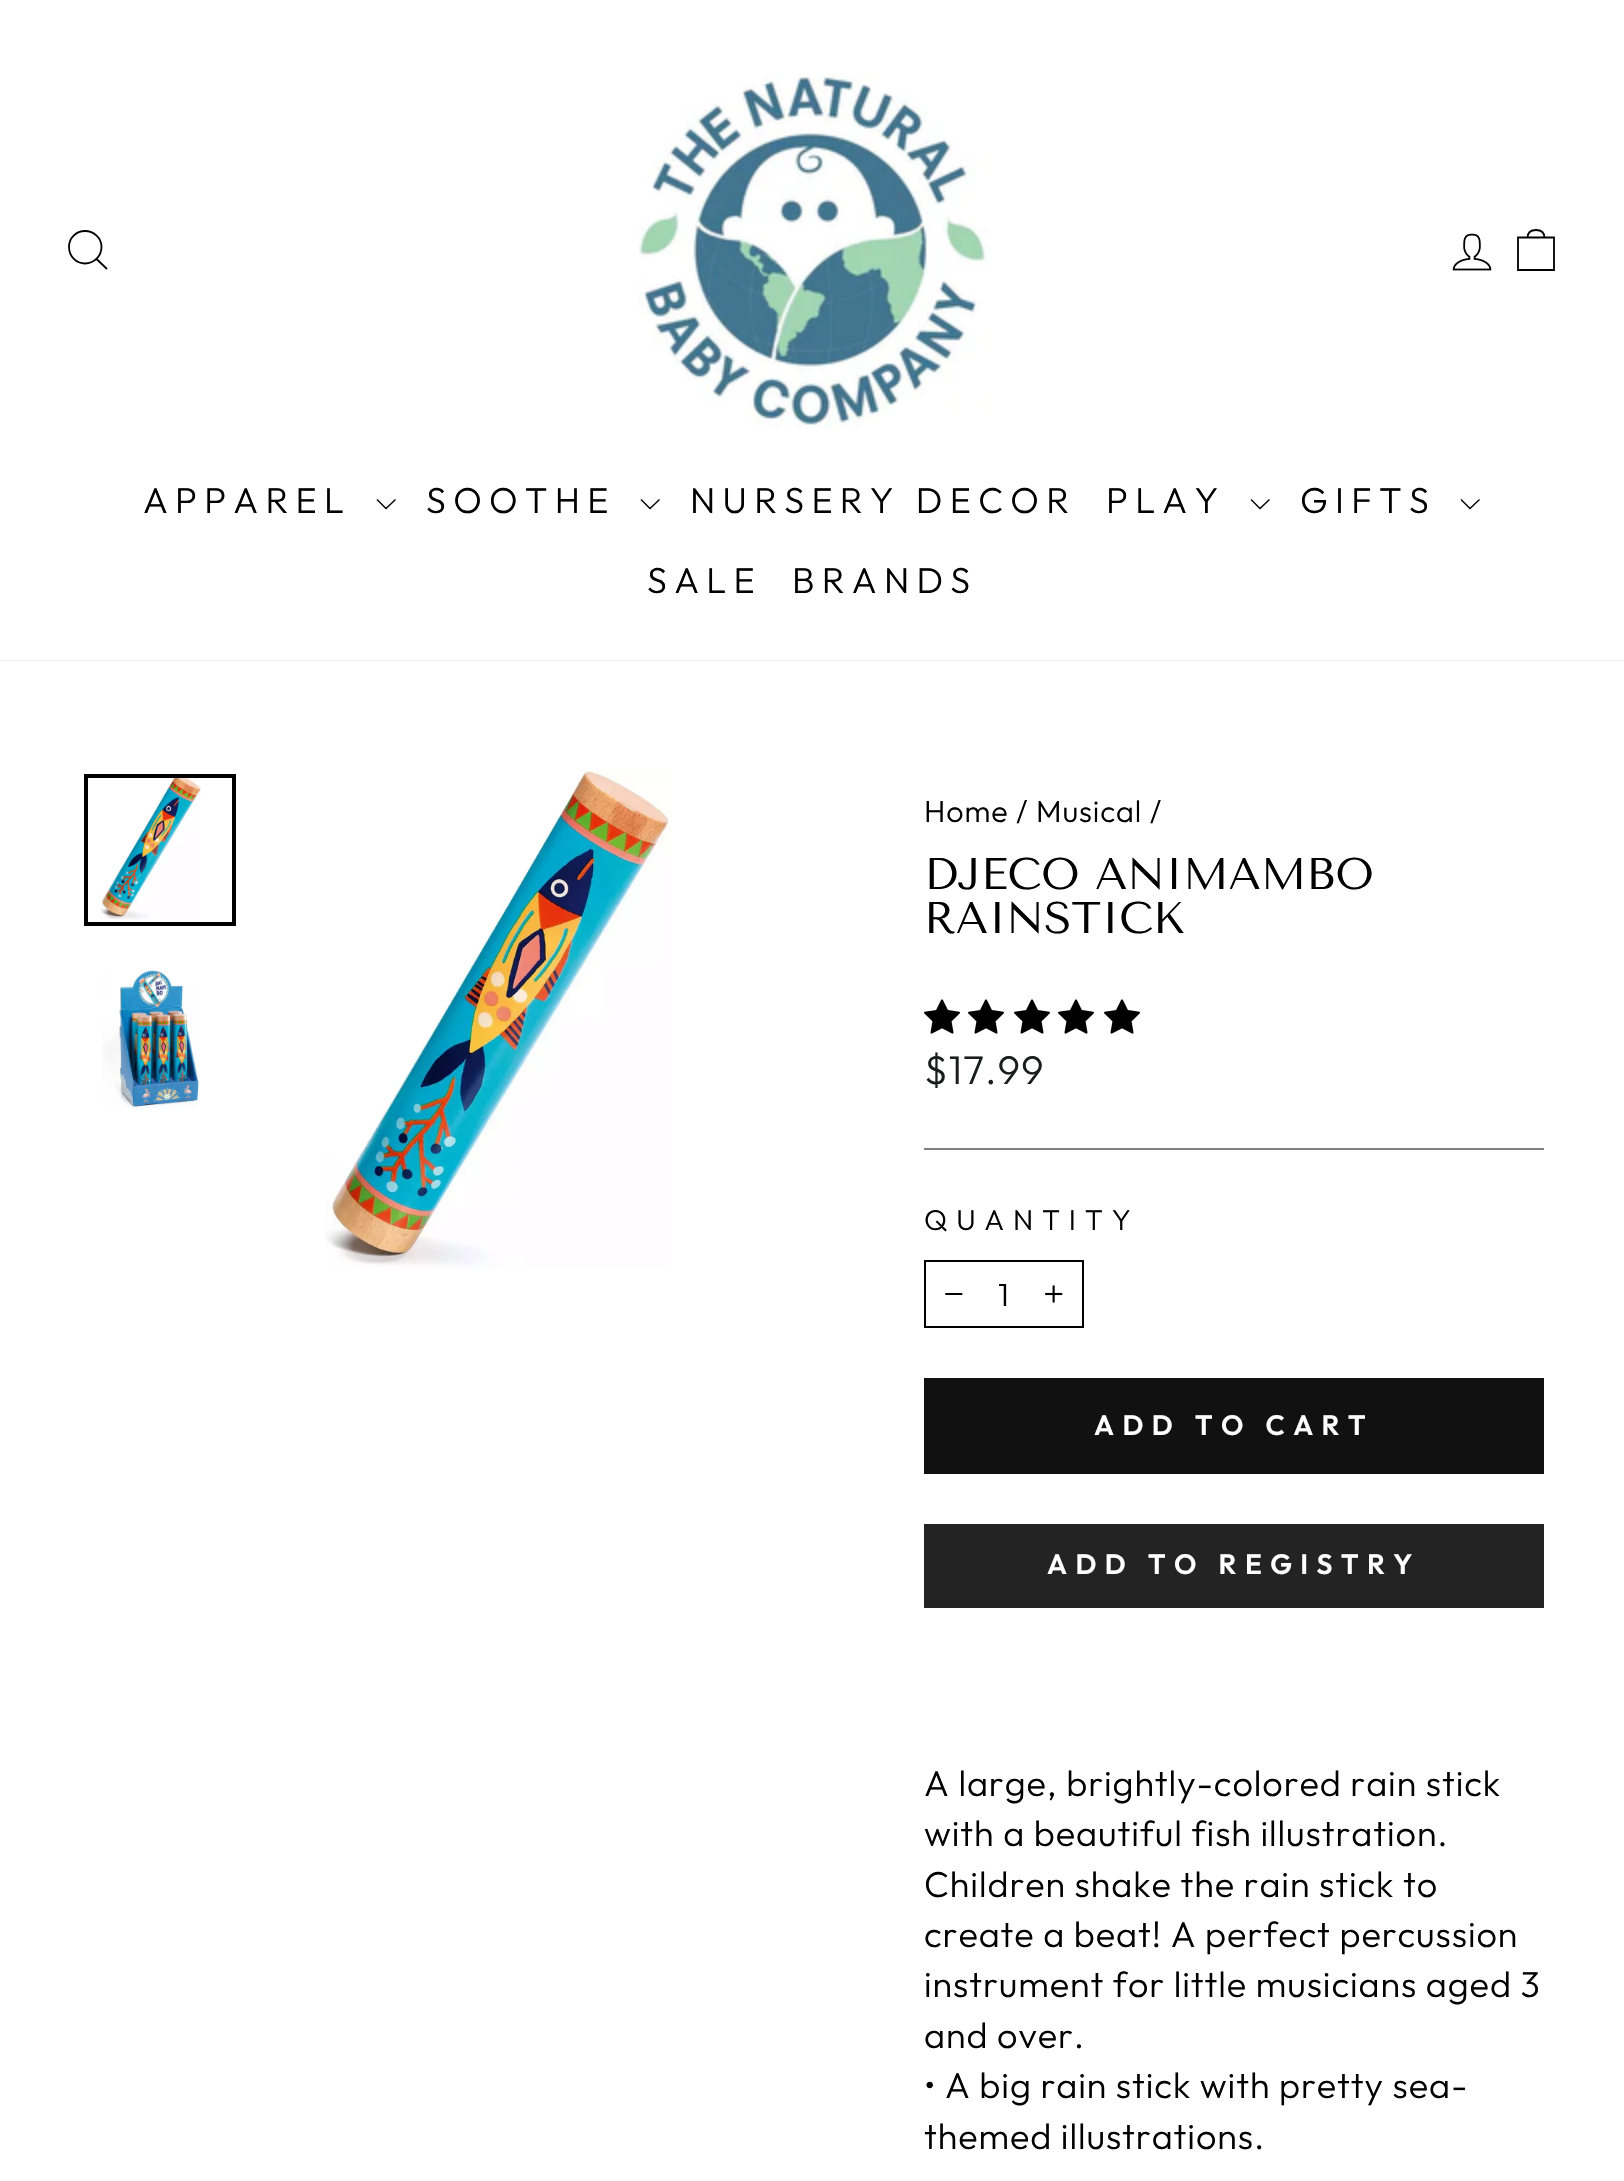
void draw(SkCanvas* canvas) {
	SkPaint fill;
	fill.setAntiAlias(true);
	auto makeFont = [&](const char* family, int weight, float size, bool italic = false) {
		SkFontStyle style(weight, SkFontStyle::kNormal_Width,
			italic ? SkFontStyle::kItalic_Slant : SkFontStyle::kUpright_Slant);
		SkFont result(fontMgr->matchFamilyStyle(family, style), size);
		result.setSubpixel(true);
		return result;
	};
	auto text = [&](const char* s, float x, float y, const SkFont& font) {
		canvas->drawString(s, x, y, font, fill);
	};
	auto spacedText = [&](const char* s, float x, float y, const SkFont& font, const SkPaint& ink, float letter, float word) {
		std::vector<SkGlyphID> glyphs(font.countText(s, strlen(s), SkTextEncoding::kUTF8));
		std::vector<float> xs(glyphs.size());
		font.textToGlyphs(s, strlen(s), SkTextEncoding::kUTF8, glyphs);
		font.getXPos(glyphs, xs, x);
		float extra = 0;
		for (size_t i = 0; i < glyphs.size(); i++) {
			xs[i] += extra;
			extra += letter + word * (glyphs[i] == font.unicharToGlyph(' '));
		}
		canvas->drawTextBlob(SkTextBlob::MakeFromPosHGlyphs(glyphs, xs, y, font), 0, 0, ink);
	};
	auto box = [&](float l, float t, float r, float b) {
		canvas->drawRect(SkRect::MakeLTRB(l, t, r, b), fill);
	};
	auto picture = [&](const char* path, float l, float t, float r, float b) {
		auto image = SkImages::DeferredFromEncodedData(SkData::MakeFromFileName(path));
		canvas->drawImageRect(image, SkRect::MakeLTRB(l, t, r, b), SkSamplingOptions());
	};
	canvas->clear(0xFFFFFFFF);
	canvas->save();
	canvas->clipRect(SkRect::MakeLTRB(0, 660, 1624, 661));
	fill.setColor(0x33000000);
	fill.setMaskFilter(SkMaskFilter::MakeBlur(kNormal_SkBlurStyle, 1));
	canvas->drawRect(SkRect::MakeLTRB(0, 0, 1624, 660), fill);
	fill.setMaskFilter(nullptr);
	canvas->restore();
	fill.setStyle(SkPaint::kStroke_Style);
	fill.setStrokeWidth(1.8f);
	fill.setColor(0xFF000000);
	canvas->drawPath(SkPathBuilder().moveTo(101.5f, 247).cubicTo(101.5f, 256, 94, 263.5f, 85, 263.5f).cubicTo(76, 263.5f, 69, 256, 69, 247).cubicTo(69, 238, 76, 231, 85, 231).cubicTo(94, 231, 101.5f, 238, 101.5f, 247).close().moveTo(107, 269).lineTo(96.5f, 259).detach(), fill);
	picture("image0.png", 638, 74, 990, 428);
	picture("image1.png", 1452, 233, 1492, 271);
	canvas->drawPath(SkPathBuilder().moveTo(1518, 237.5f).lineTo(1554, 237.5f).lineTo(1554, 270).lineTo(1518, 270).close().moveTo(1527.5f, 238).cubicTo(1527.5f, 231.5f, 1531.5f, 230, 1536, 230).cubicTo(1540.5f, 230, 1544.5f, 231.5f, 1544.5f, 238).detach(), fill);
	fill.setStrokeWidth(1.4f);
	canvas->drawPath(SkPathBuilder().moveTo(377, 499.5f).lineTo(386, 508.5f).lineTo(395.5f, 499.5f).detach(), fill);
	canvas->drawPath(SkPathBuilder().moveTo(641, 499.5f).lineTo(650, 508.5f).lineTo(659.5f, 499.5f).detach(), fill);
	canvas->drawPath(SkPathBuilder().moveTo(1251, 499.5f).lineTo(1260, 508.5f).lineTo(1269.5f, 499.5f).detach(), fill);
	canvas->drawPath(SkPathBuilder().moveTo(1461, 499.5f).lineTo(1470, 508.5f).lineTo(1479.5f, 499.5f).detach(), fill);
	picture("image2.png", 100, 778, 201, 920);
	fill.setStrokeWidth(4);
	canvas->drawRect(SkRect::MakeLTRB(86, 776, 234, 924), fill);
	picture("image3.png", 102, 970, 199, 1109);
	picture("image4.png", 325, 770, 671, 1269);
	picture("image5.png", 924, 999, 960, 1034);
	picture("image5.png", 968, 999, 1004, 1034);
	picture("image5.png", 1014, 999, 1050, 1034);
	picture("image5.png", 1058, 999, 1094, 1034);
	picture("image5.png", 1104, 999, 1140, 1034);
	fill.setStyle(SkPaint::kFill_Style);
	fill.setColor(0xFF808080);
	box(924, 1148, 1544, 1150);
	fill.setStyle(SkPaint::kStroke_Style);
	fill.setStrokeWidth(2);
	fill.setColor(0xFF000000);
	canvas->drawRect(SkRect::MakeLTRB(925, 1261, 1083, 1327), fill);
	picture("image6.png", 945, 1293, 963, 1295);
	picture("image7.png", 1045, 1285, 1063, 1303);
	fill.setStyle(SkPaint::kFill_Style);
	fill.setColor(0xFF111111);
	box(924, 1378, 1544, 1474);
	fill.setColor(0xFF232323);
	box(924, 1524, 1544, 1608);
	auto font1 = makeFont("Outfit", 300, 36);
	fill.setColor(0xFF000000);
	spacedText("APPAREL", 143, 513, font1, fill, 7.25f, 0);
	spacedText("SOOTHE", 426, 513, font1, fill, 7.25f, 0);
	spacedText("NURSERY DECOR", 690, 513, font1, fill, 7.25f, 0);
	spacedText("PLAY", 1106, 513, font1, fill, 7.25f, 0);
	spacedText("GIFTS", 1300, 513, font1, fill, 7.25f, 0);
	spacedText("SALE", 647, 593, font1, fill, 7.25f, 0);
	spacedText("BRANDS", 792, 593, font1, fill, 7.25f, 0);
	auto font2 = makeFont("Outfit", 300, 30.5f);
	spacedText("Home / Musical /", 924, 822, font2, fill, 0.9f, 0);
	auto font3 = makeFont("Tenor Sans", 400, 44.25f);
	text("DJECO ANIMAMBO", 924, 889, font3);
	text("RAINSTICK", 924, 933, font3);
	auto font4 = makeFont("Outfit", 300, 40);
	fill.setColor(0xFF1C1D1D);
	spacedText("$17.99", 924, 1084, font4, fill, 0.9f, 0);
	auto font5 = makeFont("Outfit", 300, 28.75f);
	fill.setColor(0xFF000000);
	spacedText("QUANTITY", 924, 1230, font5, fill, 8.75f, 0);
	auto font6 = makeFont("Outfit", 300, 32);
	spacedText("1", 998, 1306, font6, fill, 1, 0);
	auto font7 = makeFont("Outfit", 600, 28);
	fill.setColor(0xFFFFFFFF);
	spacedText("ADD TO CART", 1094, 1435, font7, fill, 8.4f, 0);
	spacedText("ADD TO REGISTRY", 1047, 1574, font7, fill, 8.4f, 0);
	fill.setColor(0xFF000000);
	spacedText("A large, brightly-colored rain stick", 924, 1796, font1, fill, 0.9f, 0);
	spacedText("with a beautiful fish illustration.", 924, 1846, font1, fill, 0.9f, 0);
	spacedText("Children shake the rain stick to", 924, 1897, font1, fill, 0.9f, 0);
	spacedText("create a beat! A perfect percussion", 924, 1947, font1, fill, 0.9f, 0);
	spacedText("instrument for little musicians aged 3", 924, 1997, font1, fill, 0.9f, 0);
	spacedText("and over.", 924, 2048, font1, fill, 0.9f, 0);
	spacedText("• A big rain stick with pretty sea-", 924, 2098, font1, fill, 0.9f, 0);
	spacedText("themed illustrations.", 924, 2149, font1, fill, 0.9f, 0);
}
